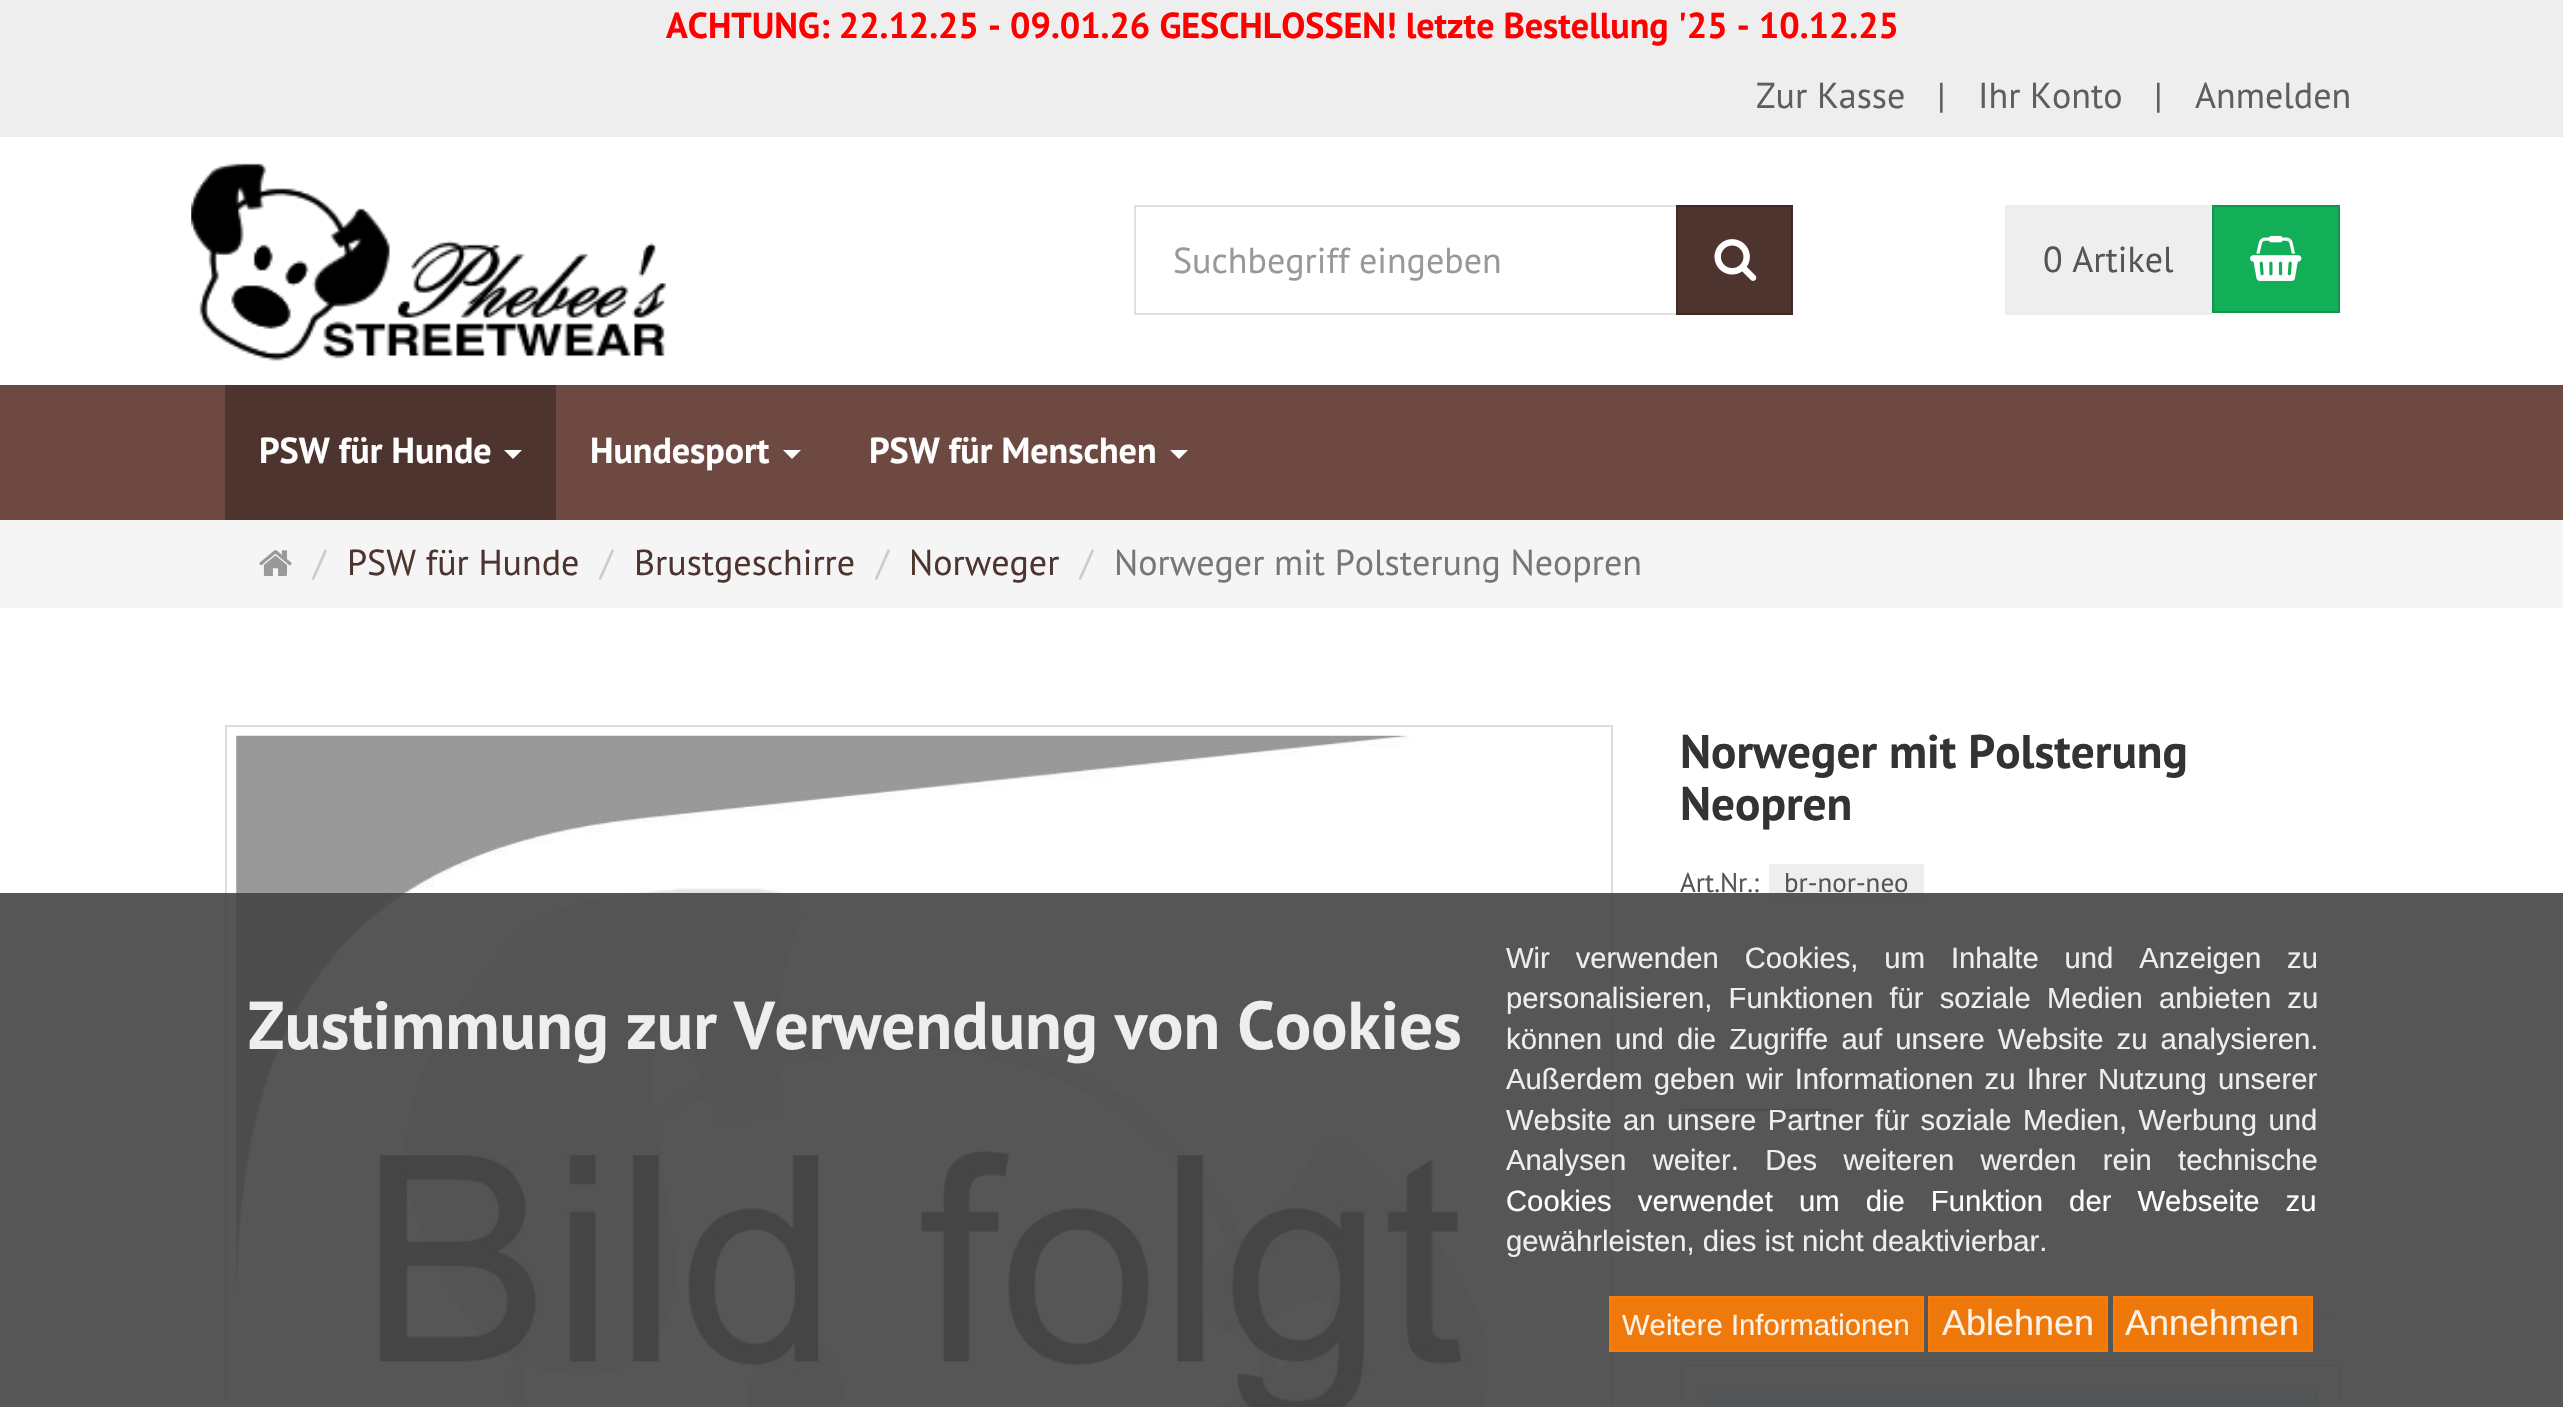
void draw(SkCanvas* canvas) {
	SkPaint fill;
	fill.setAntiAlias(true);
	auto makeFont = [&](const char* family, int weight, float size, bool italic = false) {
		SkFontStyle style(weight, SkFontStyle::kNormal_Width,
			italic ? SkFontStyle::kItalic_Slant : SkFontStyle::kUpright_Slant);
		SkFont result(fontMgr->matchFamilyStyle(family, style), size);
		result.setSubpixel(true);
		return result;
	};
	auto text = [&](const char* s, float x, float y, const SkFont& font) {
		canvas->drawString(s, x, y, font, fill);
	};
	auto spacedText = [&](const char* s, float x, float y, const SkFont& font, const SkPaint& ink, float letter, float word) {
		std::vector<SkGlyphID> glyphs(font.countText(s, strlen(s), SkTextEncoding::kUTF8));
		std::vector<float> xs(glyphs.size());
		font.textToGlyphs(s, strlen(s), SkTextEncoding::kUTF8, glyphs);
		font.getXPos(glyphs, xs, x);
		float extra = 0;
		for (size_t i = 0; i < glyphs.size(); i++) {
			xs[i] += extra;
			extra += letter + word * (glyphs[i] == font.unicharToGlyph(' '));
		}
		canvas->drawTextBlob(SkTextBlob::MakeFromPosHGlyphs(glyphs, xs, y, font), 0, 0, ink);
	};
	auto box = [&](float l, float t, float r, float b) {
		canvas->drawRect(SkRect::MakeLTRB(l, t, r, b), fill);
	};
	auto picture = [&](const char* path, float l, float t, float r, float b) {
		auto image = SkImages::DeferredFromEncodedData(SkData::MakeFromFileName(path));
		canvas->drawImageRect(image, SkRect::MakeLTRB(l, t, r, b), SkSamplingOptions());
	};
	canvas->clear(0xFFFFFFFF);
	fill.setColor(0xFFEEEEEE);
	box(0, 0, 2563, 137);
	picture("image0.png", 191, 163, 666, 361);
	fill.setStyle(SkPaint::kStroke_Style);
	fill.setStrokeWidth(2);
	fill.setColor(0xFFE0E0E0);
	canvas->drawRect(SkRect::MakeLTRB(1135, 206, 1678, 314), fill);
	fill.setStyle(SkPaint::kFill_Style);
	fill.setColor(0xFF4E342E);
	canvas->drawRect(SkRect::MakeLTRB(1677, 206, 1792, 314), fill);
	fill.setStyle(SkPaint::kStroke_Style);
	fill.setColor(0xFF3E2925);
	canvas->drawRect(SkRect::MakeLTRB(1677, 206, 1792, 314), fill);
	picture("image1.png", 1714, 239, 1757, 281);
	fill.setStyle(SkPaint::kFill_Style);
	fill.setColor(0xFFEEEEEE);
	box(2005, 205, 2212, 315);
	fill.setColor(0xFF13AE58);
	canvas->drawRect(SkRect::MakeLTRB(2213, 206, 2339, 312), fill);
	fill.setStyle(SkPaint::kStroke_Style);
	fill.setColor(0xFF10974C);
	canvas->drawRect(SkRect::MakeLTRB(2213, 206, 2339, 312), fill);
	picture("image2.png", 2250, 235, 2302, 281);
	fill.setStyle(SkPaint::kFill_Style);
	fill.setColor(0xFF6E4941);
	box(0, 385, 2563, 520);
	fill.setColor(0xFF4E342E);
	box(225, 385, 556, 520);
	fill.setColor(0xFFFFFFFF);
	canvas->drawPath(SkPathBuilder().moveTo(504, 450).lineTo(522, 450).lineTo(513, 459).close().detach(), fill);
	canvas->drawPath(SkPathBuilder().moveTo(783, 450).lineTo(801, 450).lineTo(792, 459).close().detach(), fill);
	canvas->drawPath(SkPathBuilder().moveTo(1170, 450).lineTo(1188, 450).lineTo(1179, 459).close().detach(), fill);
	fill.setColor(0xFFF5F5F5);
	box(0, 520, 2563, 608);
	picture("image3.png", 259, 550, 292, 576);
	fill.setStyle(SkPaint::kStroke_Style);
	fill.setColor(0xFFDDDDDD);
	canvas->drawRect(SkRect::MakeLTRB(226, 726, 1612, 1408), fill);
	picture("image4.png", 236, 735, 1492, 1407);
	fill.setStyle(SkPaint::kFill_Style);
	fill.setColor(0xFFEEEEEE);
	box(1769, 864, 1924, 905);
	fill.setColor(0xFF999999);
	box(1681, 1109, 1832, 1111);
	fill.setColor(0xFFEEEEEE);
	box(1681, 1312, 2340, 1314);
	fill.setStyle(SkPaint::kStroke_Style);
	fill.setColor(0xFFE0E0E0);
	canvas->drawRect(SkRect::MakeLTRB(1682, 1365, 2339, 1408), fill);
	fill.setStyle(SkPaint::kFill_Style);
	fill.setColor(0xFFD9EDF7);
	canvas->drawRect(SkRect::MakeLTRB(1704, 1387, 2317, 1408), fill);
	fill.setStyle(SkPaint::kStroke_Style);
	fill.setColor(0xFFBCE8F1);
	canvas->drawRect(SkRect::MakeLTRB(1704, 1387, 2317, 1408), fill);
	fill.setStyle(SkPaint::kFill_Style);
	fill.setColor(0xE6444444);
	box(0, 893, 2563, 1407);
	fill.setColor(0xE6FF7C02);
	canvas->drawRect(SkRect::MakeLTRB(1610, 1297, 1923, 1351), fill);
	fill.setStyle(SkPaint::kStroke_Style);
	fill.setColor(0xFFFD7B01);
	canvas->drawRect(SkRect::MakeLTRB(1610, 1297, 1923, 1351), fill);
	fill.setStyle(SkPaint::kFill_Style);
	fill.setColor(0xFFEE780A);
	canvas->drawRect(SkRect::MakeLTRB(1929, 1297, 2107, 1351), fill);
	fill.setStyle(SkPaint::kStroke_Style);
	fill.setColor(0xFFFD7B01);
	canvas->drawRect(SkRect::MakeLTRB(1929, 1297, 2107, 1351), fill);
	fill.setStyle(SkPaint::kFill_Style);
	fill.setColor(0xFFEE780A);
	canvas->drawRect(SkRect::MakeLTRB(2114, 1297, 2312, 1351), fill);
	fill.setStyle(SkPaint::kStroke_Style);
	fill.setColor(0xFFFD7B01);
	canvas->drawRect(SkRect::MakeLTRB(2114, 1297, 2312, 1351), fill);
	auto font1 = makeFont("PT Sans", 700, 36);
	fill.setStyle(SkPaint::kFill_Style);
	fill.setColor(0xFFFF0000);
	text("ACHTUNG: 22.12.25 - 09.01.26 GESCHLOSSEN! letzte Bestellung '25 - 10.12.25", 666, 38, font1);
	auto font2 = makeFont("PT Sans", 400, 36);
	fill.setColor(0xFF5E5E5E);
	text("Zur Kasse", 1756, 108, font2);
	text("|", 1937, 108, font2);
	text("Ihr Konto", 1978, 108, font2);
	text("|", 2154, 108, font2);
	text("Anmelden", 2195, 108, font2);
	fill.setColor(0xFF999999);
	text("Suchbegriff eingeben", 1173, 273, font2);
	fill.setColor(0xFF555555);
	text("0 Artikel", 2043, 272, font2);
	fill.setColor(0xFFFFFFFF);
	text("PSW für Hunde", 259, 463, font1);
	text("Hundesport", 590, 463, font1);
	text("PSW für Menschen", 869, 463, font1);
	fill.setColor(0xFFCCCCCC);
	text("/", 313, 575, font2);
	fill.setColor(0xFF4E342E);
	text("PSW für Hunde", 347, 575, font2);
	fill.setColor(0xFFCCCCCC);
	text("/", 600, 575, font2);
	fill.setColor(0xFF4E342E);
	text("Brustgeschirre", 634, 575, font2);
	fill.setColor(0xFFCCCCCC);
	text("/", 876, 575, font2);
	fill.setColor(0xFF4E342E);
	text("Norweger", 909, 575, font2);
	fill.setColor(0xFFCCCCCC);
	text("/", 1080, 575, font2);
	fill.setColor(0xFF777777);
	text("Norweger mit Polsterung Neopren", 1114, 575, font2);
	auto font3 = makeFont("PT Sans", 700, 47.25f);
	fill.setColor(0xFF333333);
	text("Norweger mit Polsterung", 1680, 768, font3);
	text("Neopren", 1680, 820, font3);
	auto font4 = makeFont("PT Sans", 400, 27);
	fill.setColor(0xFF555555);
	text("Art.Nr.:", 1680, 892, font4);
	text("br-nor-neo", 1784, 892, font4);
	auto font5 = makeFont("PT Sans", 700, 67.5f);
	fill.setColor(0xFFEEEEEE);
	text("Zustimmung zur Verwendung von Cookies", 248, 1049, font5);
	auto font6 = makeFont("Liberation Sans", 400, 29.25f);
	spacedText("Wir verwenden Cookies, um Inhalte und Anzeigen zu", 1506, 968, font6, fill, 0, 17.75f);
	spacedText("personalisieren, Funktionen für soziale Medien anbieten zu", 1506, 1008, font6, fill, 0, 8);
	spacedText("können und die Zugriffe auf unsere Website zu analysieren.", 1506, 1049, font6, fill, 0, 5);
	spacedText("Außerdem geben wir Informationen zu Ihrer Nutzung unserer", 1506, 1089, font6, fill, 0, 3);
	spacedText("Website an unsere Partner für soziale Medien, Werbung und", 1506, 1130, font6, fill, 0, 3.25f);
	spacedText("Analysen weiter. Des weiteren werden rein technische", 1506, 1170, font6, fill, 0, 18.25f);
	fill.setColor(0xFFFFFFFF);
	spacedText("Cookies verwendet um die Funktion der Webseite zu", 1506, 1211, font6, fill, 0, 18);
	fill.setColor(0xFFEEEEEE);
	text("gewährleisten, dies ist nicht deaktivierbar.", 1506, 1251, font6);
	fill.setColor(0xFFFDF2E7);
	text("Weitere Informationen", 1622, 1335, font6);
	auto font7 = makeFont("Liberation Sans", 400, 36);
	text("Ablehnen", 1942, 1335, font7);
	text("Annehmen", 2125, 1335, font7);
}
